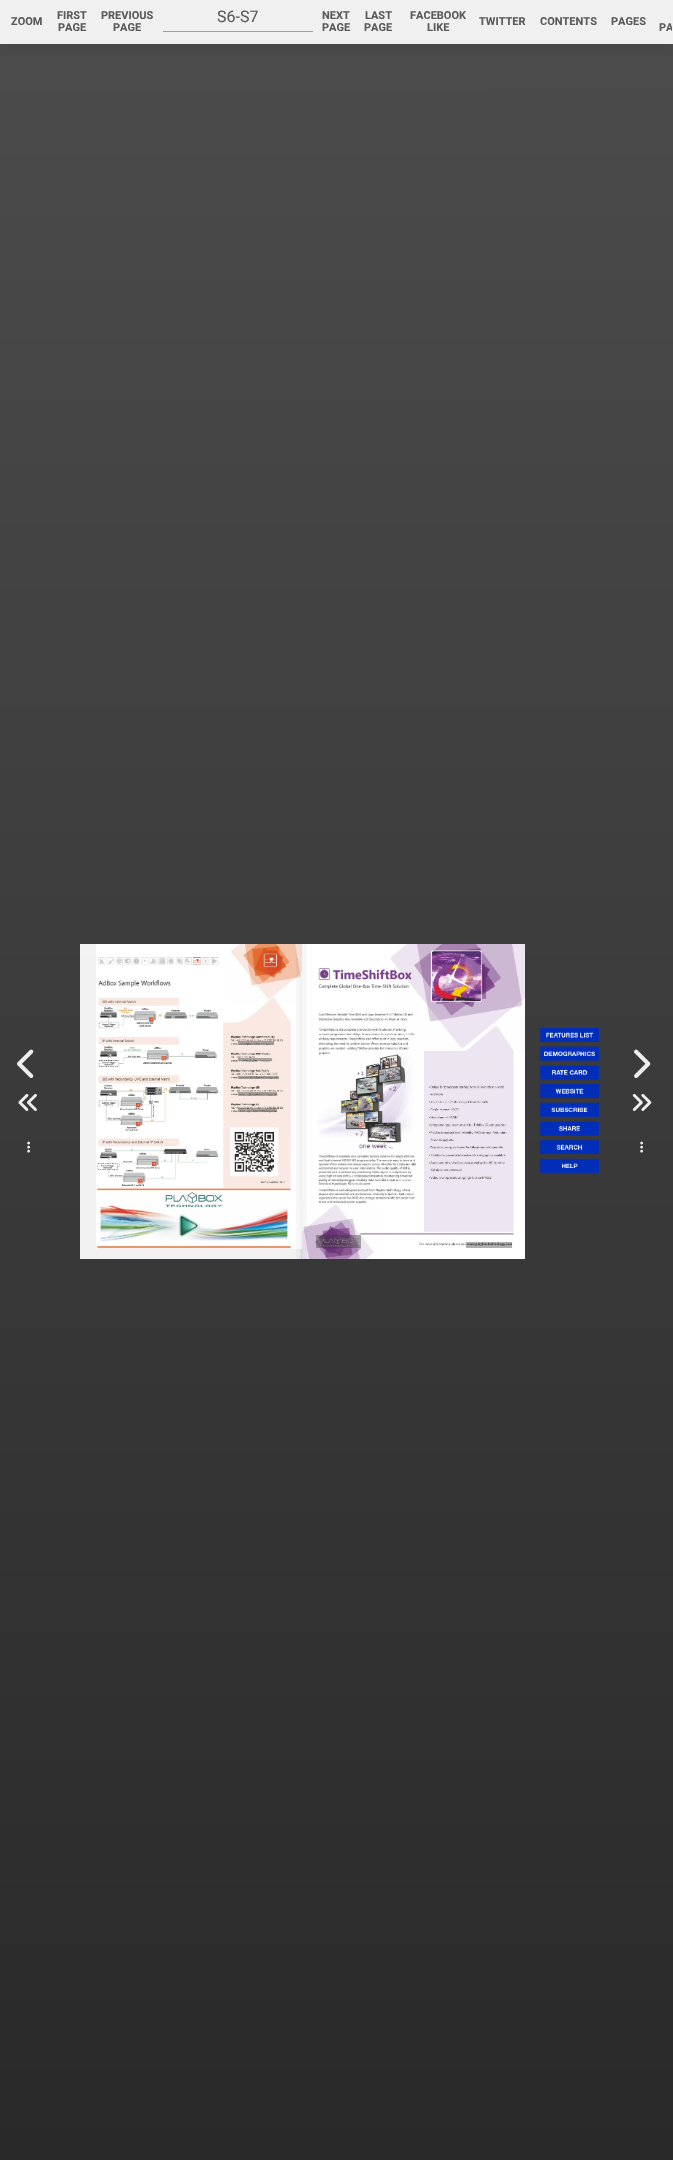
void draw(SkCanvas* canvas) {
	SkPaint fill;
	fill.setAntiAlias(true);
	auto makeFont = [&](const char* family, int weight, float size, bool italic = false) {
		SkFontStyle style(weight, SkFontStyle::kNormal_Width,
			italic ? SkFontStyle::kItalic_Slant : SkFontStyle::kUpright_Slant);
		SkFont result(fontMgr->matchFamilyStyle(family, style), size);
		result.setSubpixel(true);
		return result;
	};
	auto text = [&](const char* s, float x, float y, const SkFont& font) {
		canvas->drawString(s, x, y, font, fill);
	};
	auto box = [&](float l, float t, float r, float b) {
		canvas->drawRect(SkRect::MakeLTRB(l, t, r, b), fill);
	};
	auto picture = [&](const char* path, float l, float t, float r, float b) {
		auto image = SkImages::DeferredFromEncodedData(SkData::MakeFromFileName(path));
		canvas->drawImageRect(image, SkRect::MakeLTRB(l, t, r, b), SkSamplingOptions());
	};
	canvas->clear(0xFFFFFFFF);
	{
		const SkColor colors[] = {0xFF4C4C4C, 0xFF292929};
		const float stops[] = {0, 1};
		const SkPoint ends[] = {{336, 0}, {337, 2160}};
		fill.setShader(SkGradientShader::MakeLinear(ends, colors, stops, 2, SkTileMode::kClamp));
		fill.setAlpha(255);
	}
	box(0, 44, 673, 2160);
	fill.setShader(nullptr);
	fill.setColor(0x24000000);
	fill.setMaskFilter(SkMaskFilter::MakeBlur(kNormal_SkBlurStyle, 7));
	canvas->drawRect(SkRect::MakeLTRB(0, 0, 673, 44), fill);
	fill.setMaskFilter(nullptr);
	fill.setColor(0xFFF0F0F0);
	box(0, 0, 673, 44);
	fill.setColor(0xFF9E9E9E);
	box(163, 31, 313, 32);
	picture("image0.png", 17, 1049, 34, 1078);
	picture("image1.png", 18, 1093, 37, 1111);
	picture("image2.png", 27, 1141, 30, 1153);
	picture("image3.png", 80, 944, 302, 1259);
	picture("image4.png", 96, 944, 302, 1249);
	picture("image5.png", 96, 944, 302, 1249);
	fill.setColor(0x663B3B3B);
	box(238, 1041, 274, 1045);
	{
		const SkColor colors[] = {0x00000000, 0x0D000000};
		const float stops[] = {0.95f, 1};
		const SkPoint ends[] = {{80, 1102}, {302, 1102}};
		fill.setShader(SkGradientShader::MakeLinear(ends, colors, stops, 2, SkTileMode::kClamp));
		fill.setAlpha(255);
	}
	box(296, 944, 302, 1259);
	fill.setShader(nullptr);
	fill.setColor(0x663B3B3B);
	box(238, 1058, 272, 1061);
	box(238, 1076, 279, 1079);
	fill.setColor(0x663A3A3A);
	box(238, 1092, 277, 1096);
	box(238, 1108, 277, 1112);
	picture("image6.png", 302, 944, 525, 1259);
	picture("image7.png", 302, 944, 525, 1259);
	picture("image8.png", 304, 944, 525, 1259);
	{
		const SkColor colors[] = {0x00000000, 0x0A000000};
		const float stops[] = {0.95f, 1};
		const SkPoint ends[] = {{525, 1102}, {302, 1102}};
		fill.setShader(SkGradientShader::MakeLinear(ends, colors, stops, 2, SkTileMode::kClamp));
		fill.setAlpha(255);
	}
	box(302, 944, 307, 1259);
	fill.setShader(nullptr);
	fill.setColor(0x66383838);
	box(316, 1235, 361, 1248);
	box(466, 1242, 512, 1248);
	picture("image9.png", 539, 1028, 599, 1174);
	picture("image10.png", 634, 1049, 651, 1078);
	picture("image11.png", 632, 1093, 652, 1111);
	picture("image2.png", 640, 1141, 643, 1153);
	auto font1 = makeFont("Roboto", 700, 11);
	fill.setColor(0xFF5A5A5A);
	text("ZOOM", 11, 25, font1);
	text("FIRST", 57, 19, font1);
	text("PAGE", 58, 31, font1);
	text("PREVIOUS", 101, 19, font1);
	text("PAGE", 113, 31, font1);
	auto font2 = makeFont("Roboto", 400, 16);
	text("S6-S7", 217, 22, font2);
	text("NEXT", 322, 19, font1);
	text("PAGE", 322, 31, font1);
	text("LAST", 365, 19, font1);
	text("PAGE", 364, 31, font1);
	text("FACEBOOK", 410, 19, font1);
	text("LIKE", 427, 31, font1);
	text("TWITTER", 479, 25, font1);
	text("CONTENTS", 540, 25, font1);
	text("PAGES", 611, 25, font1);
	canvas->save();
	canvas->clipRect(SkRect::MakeLTRB(654, 2, 672, 42));
	text("PA", 659, 31, font1);
	canvas->restore();
}
